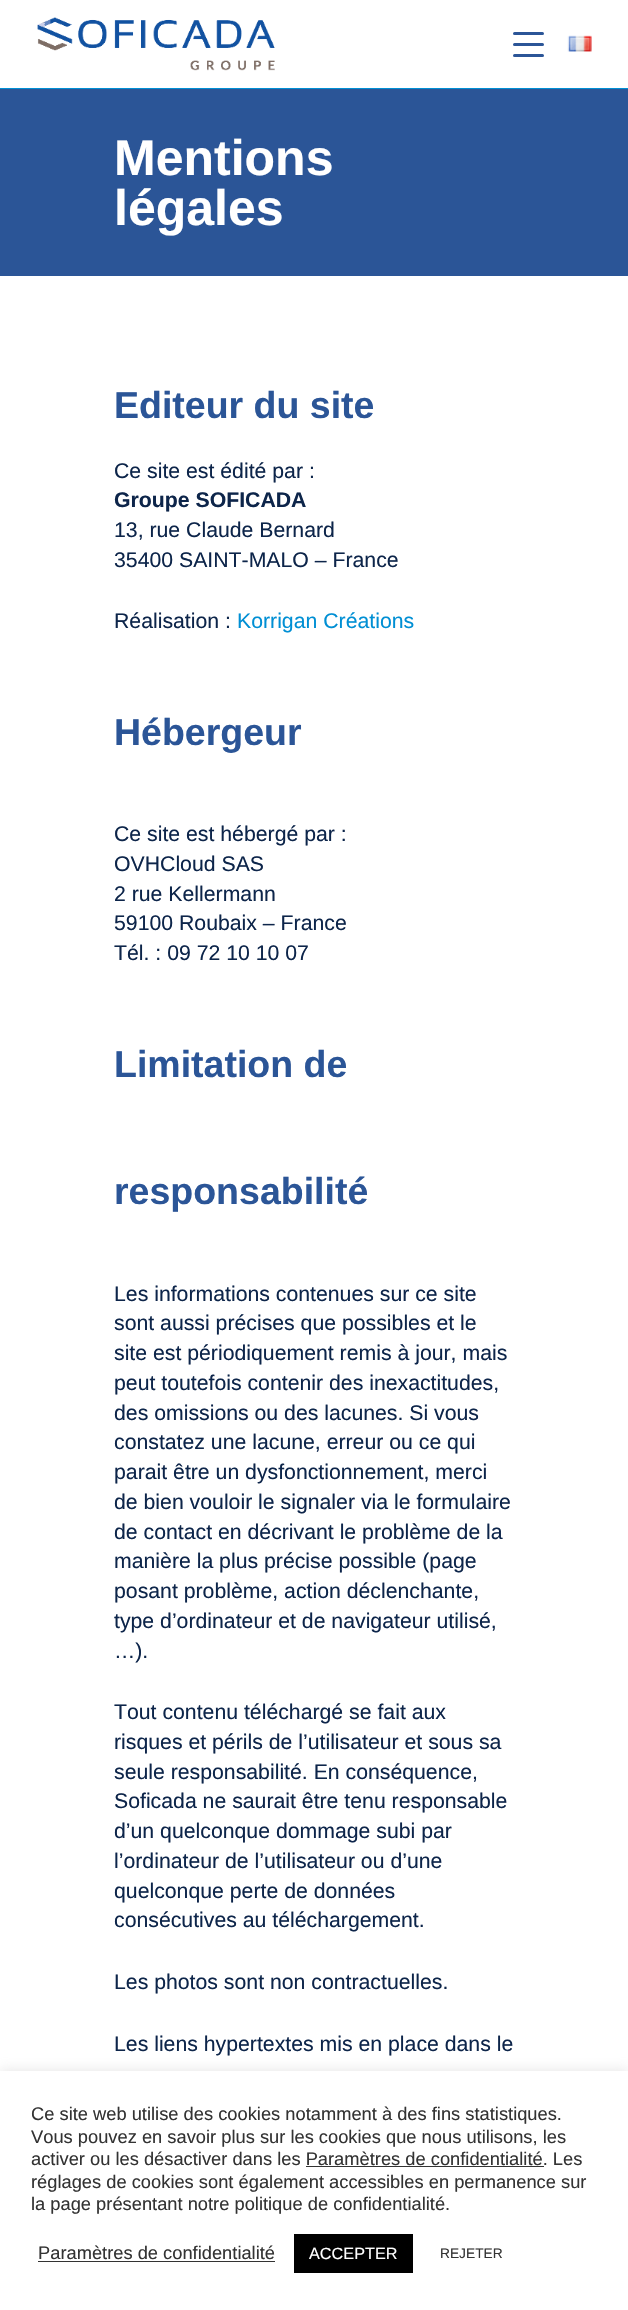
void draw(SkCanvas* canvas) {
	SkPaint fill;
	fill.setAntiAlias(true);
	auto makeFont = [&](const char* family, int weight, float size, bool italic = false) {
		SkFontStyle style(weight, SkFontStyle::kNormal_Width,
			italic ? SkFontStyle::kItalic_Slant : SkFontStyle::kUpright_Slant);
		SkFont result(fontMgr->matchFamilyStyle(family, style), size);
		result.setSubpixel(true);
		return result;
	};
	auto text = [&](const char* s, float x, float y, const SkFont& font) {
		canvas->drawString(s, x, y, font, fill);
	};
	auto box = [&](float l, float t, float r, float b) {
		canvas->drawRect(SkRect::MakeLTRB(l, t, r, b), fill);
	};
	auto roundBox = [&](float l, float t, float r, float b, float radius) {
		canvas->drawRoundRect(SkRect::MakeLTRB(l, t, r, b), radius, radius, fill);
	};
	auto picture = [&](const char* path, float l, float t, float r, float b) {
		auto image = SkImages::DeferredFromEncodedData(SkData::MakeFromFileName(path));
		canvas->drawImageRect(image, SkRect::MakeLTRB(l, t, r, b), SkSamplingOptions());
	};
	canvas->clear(0xFFFFFFFF);
	picture("image0.png", 37, 17, 275, 71);
	fill.setColor(0xFF2B5597);
	roundBox(513, 32, 544, 35, 1.5f);
	roundBox(513, 43, 544, 46, 1.5f);
	roundBox(513, 54, 544, 57, 1.5f);
	picture("image1.png", 567, 35, 592, 52);
	fill.setColor(0xFF008FD4);
	box(0, 88, 628, 89);
	fill.setColor(0xFF2B5597);
	box(0, 89, 628, 276);
	fill.setColor(0x4DACABAB);
	fill.setMaskFilter(SkMaskFilter::MakeBlur(kNormal_SkBlurStyle, 6));
	canvas->drawRect(SkRect::MakeLTRB(0, 2070, 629, 2309), fill);
	fill.setMaskFilter(nullptr);
	fill.setColor(0xFFFFFFFF);
	box(0, 2071, 628, 2310);
	fill.setColor(0xFF333333);
	box(306, 2166, 544, 2167);
	box(38, 2261, 275, 2262);
	fill.setColor(0xFF000000);
	box(294, 2234, 413, 2273);
	auto font1 = makeFont("Liberation Sans", 700, 50);
	fill.setColor(0xFFFFFFFF);
	text("Mentions", 114, 175, font1);
	text("légales", 114, 225, font1);
	auto font2 = makeFont("Liberation Sans", 700, 37.5f);
	fill.setColor(0xFF2B5597);
	text("Editeur du site", 114, 418, font2);
	auto font3 = makeFont("Liberation Sans", 400, 21.25f);
	fill.setColor(0xFF0D254A);
	text("Ce site est édité par :", 114, 478, font3);
	auto font4 = makeFont("Liberation Sans", 700, 21.25f);
	text("Groupe SOFICADA", 114, 507, font4);
	text("13, rue Claude Bernard", 114, 537, font3);
	text("35400 SAINT-MALO – France", 114, 567, font3);
	text("Réalisation :", 114, 628, font3);
	fill.setColor(0xFF008FD4);
	text("Korrigan Créations", 237, 628, font3);
	fill.setColor(0xFF2B5597);
	text("Hébergeur", 114, 745, font2);
	fill.setColor(0xFF0D254A);
	text("Ce site est hébergé par :", 114, 841, font3);
	text("OVHCloud SAS", 114, 871, font3);
	text("2 rue Kellermann", 114, 901, font3);
	text("59100 Roubaix – France", 114, 930, font3);
	text("Tél. : 09 72 10 10 07", 114, 960, font3);
	fill.setColor(0xFF2B5597);
	text("Limitation de", 114, 1077, font2);
	text("responsabilité", 114, 1204, font2);
	fill.setColor(0xFF0D254A);
	text("Les informations contenues sur ce site", 114, 1301, font3);
	text("sont aussi précises que possibles et le", 114, 1330, font3);
	text("site est périodiquement remis à jour, mais", 114, 1360, font3);
	text("peut toutefois contenir des inexactitudes,", 114, 1390, font3);
	text("des omissions ou des lacunes. Si vous", 114, 1420, font3);
	text("constatez une lacune, erreur ou ce qui", 114, 1449, font3);
	text("parait être un dysfonctionnement, merci", 114, 1479, font3);
	text("de bien vouloir le signaler via le formulaire", 114, 1509, font3);
	text("de contact en décrivant le problème de la", 114, 1539, font3);
	text("manière la plus précise possible (page", 114, 1568, font3);
	text("posant problème, action déclenchante,", 114, 1598, font3);
	text("type d’ordinateur et de navigateur utilisé,", 114, 1628, font3);
	text("…).", 114, 1658, font3);
	text("Tout contenu téléchargé se fait aux", 114, 1719, font3);
	text("risques et périls de l’utilisateur et sous sa", 114, 1749, font3);
	text("seule responsabilité. En conséquence,", 114, 1779, font3);
	text("Soficada ne saurait être tenu responsable", 114, 1808, font3);
	text("d’un quelconque dommage subi par", 114, 1838, font3);
	text("l’ordinateur de l’utilisateur ou d’une", 114, 1868, font3);
	text("quelconque perte de données", 114, 1898, font3);
	text("consécutives au téléchargement.", 114, 1927, font3);
	text("Les photos sont non contractuelles.", 114, 1989, font3);
	text("Les liens hypertextes mis en place dans le", 114, 2051, font3);
	auto font5 = makeFont("Liberation Sans", 400, 18.3f);
	fill.setColor(0xFF333333);
	text("Ce site web utilise des cookies notamment à des fins statistiques.", 31, 2120, font5);
	text("Vous pouvez en savoir plus sur les cookies que nous utilisons, les", 31, 2143, font5);
	text("activer ou les désactiver dans les Paramètres de confidentialité. Les", 31, 2165, font5);
	text("réglages de cookies sont également accessibles en permanence sur", 31, 2188, font5);
	text("la page présentant notre politique de confidentialité.", 31, 2210, font5);
	text("Paramètres de confidentialité", 38, 2259, font5);
	auto font6 = makeFont("Liberation Sans", 400, 16.25f);
	fill.setColor(0xFFFFFFFF);
	text("ACCEPTER", 309, 2259, font6);
	auto font7 = makeFont("Liberation Sans", 400, 13.75f);
	fill.setColor(0xFF333333);
	text("REJETER", 440, 2258, font7);
}
